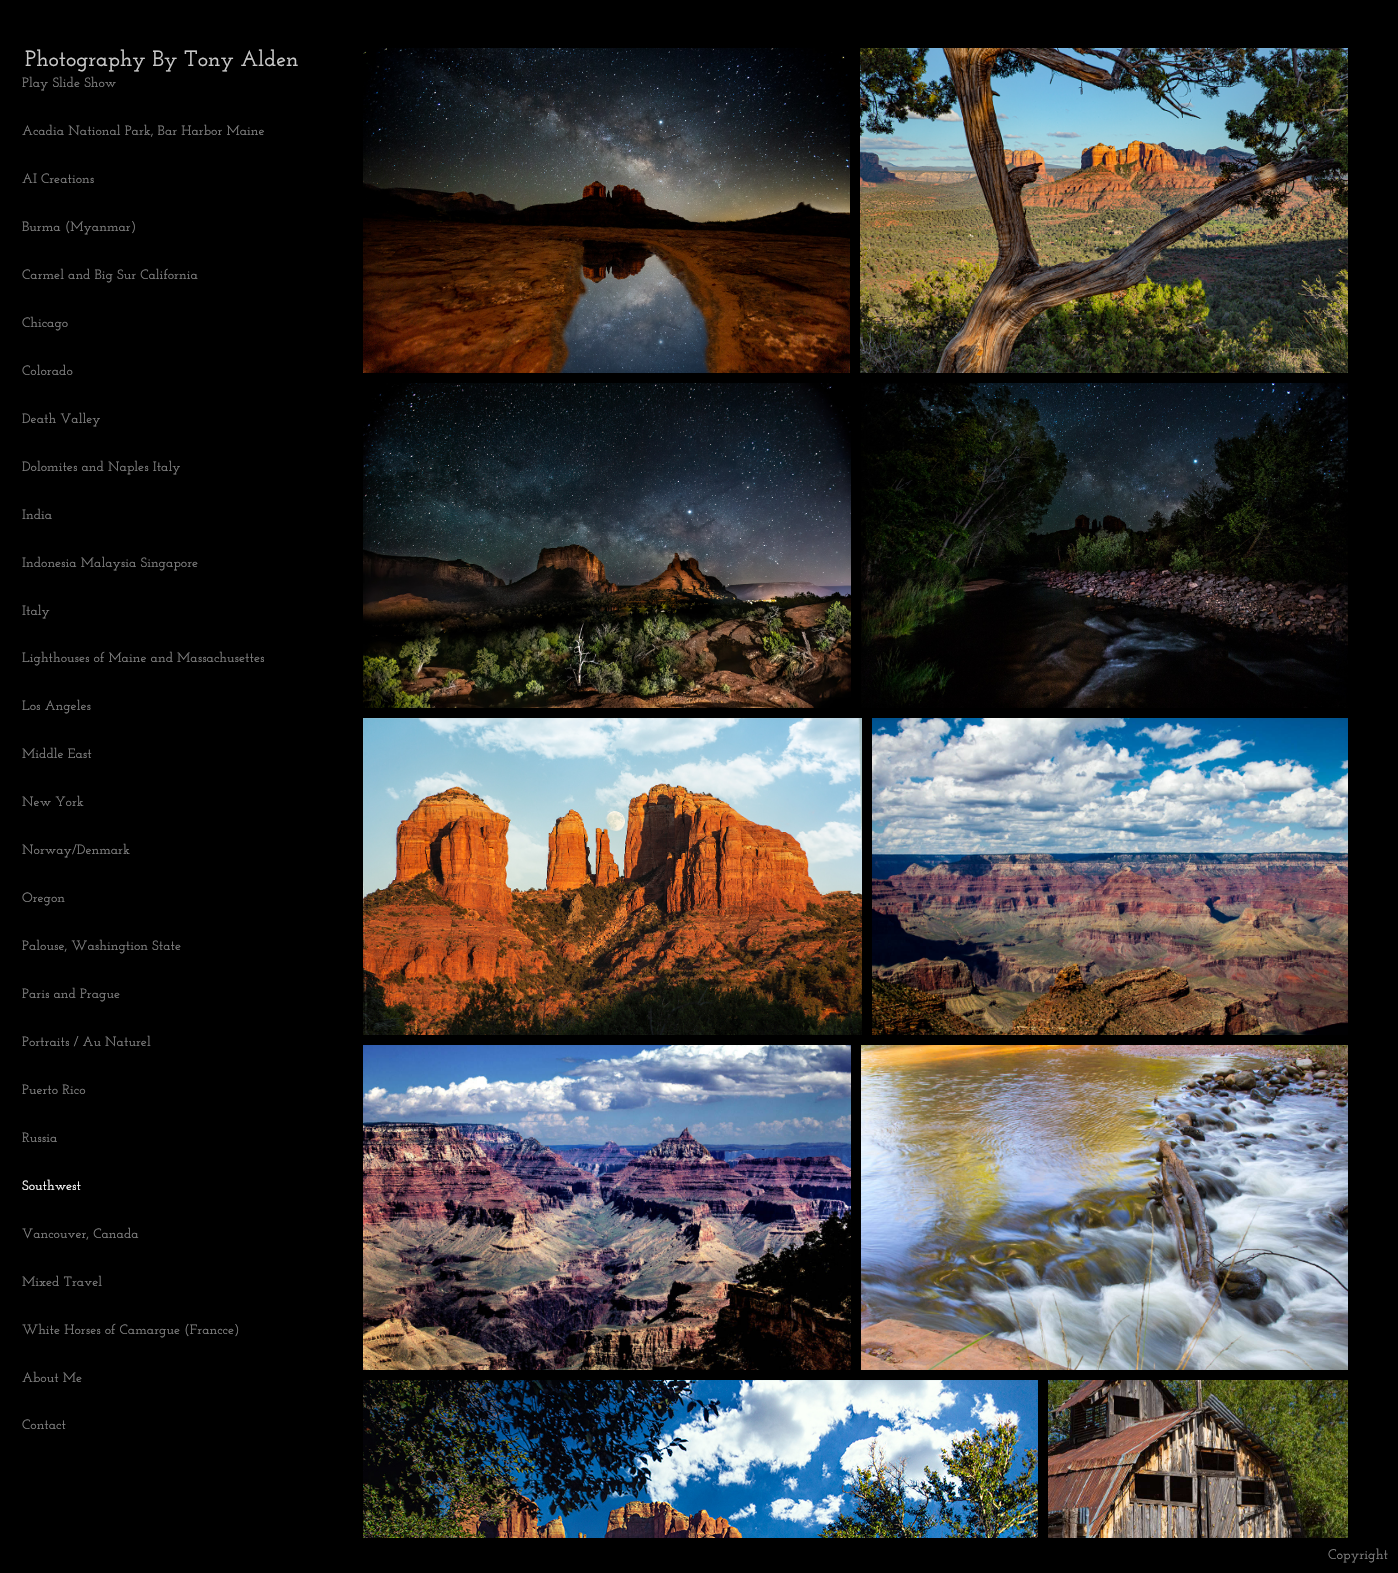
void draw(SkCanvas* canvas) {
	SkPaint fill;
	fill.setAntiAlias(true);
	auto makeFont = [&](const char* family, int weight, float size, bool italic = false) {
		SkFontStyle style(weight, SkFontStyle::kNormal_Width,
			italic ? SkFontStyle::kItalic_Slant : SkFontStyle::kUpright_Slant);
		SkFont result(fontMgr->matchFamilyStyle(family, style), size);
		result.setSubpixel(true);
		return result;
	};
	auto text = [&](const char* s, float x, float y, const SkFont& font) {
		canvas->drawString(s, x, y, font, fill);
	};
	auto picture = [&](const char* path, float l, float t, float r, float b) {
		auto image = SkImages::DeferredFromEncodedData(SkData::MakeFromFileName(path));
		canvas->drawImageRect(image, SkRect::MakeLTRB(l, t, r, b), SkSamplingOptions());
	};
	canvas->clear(0xFF000000);
	picture("image0.png", 363, 48, 850, 373);
	picture("image1.png", 860, 48, 1348, 373);
	picture("image2.png", 363, 383, 851, 708);
	picture("image3.png", 861, 383, 1348, 708);
	picture("image4.png", 363, 718, 862, 1035);
	picture("image5.png", 872, 718, 1348, 1035);
	picture("image6.png", 363, 1045, 851, 1370);
	picture("image7.png", 861, 1045, 1348, 1370);
	picture("image8.png", 363, 1380, 1038, 1538);
	picture("image9.png", 1048, 1380, 1348, 1538);
	auto font1 = makeFont("Josefin Slab", 600, 22);
	fill.setColor(0xFFC9C9C9);
	text("Photography By Tony Alden", 25, 66, font1);
	auto font2 = makeFont("Josefin Slab", 600, 13.6f);
	fill.setColor(0xFF7E7E7E);
	text("Play Slide Show", 22, 87, font2);
	text("Acadia National Park, Bar Harbor Maine", 22, 135, font2);
	text("AI Creations", 22, 183, font2);
	text("Burma (Myanmar)", 22, 231, font2);
	text("Carmel and Big Sur California", 22, 279, font2);
	text("Chicago", 22, 327, font2);
	text("Colorado", 22, 375, font2);
	text("Death Valley", 22, 423, font2);
	text("Dolomites and Naples Italy", 22, 471, font2);
	text("India", 22, 519, font2);
	text("Indonesia Malaysia Singapore", 22, 567, font2);
	text("Italy", 22, 615, font2);
	text("Lighthouses of Maine and Massachusettes", 22, 662, font2);
	text("Los Angeles", 22, 710, font2);
	text("Middle East", 22, 758, font2);
	text("New York", 22, 806, font2);
	text("Norway/Denmark", 22, 854, font2);
	text("Oregon", 22, 902, font2);
	text("Palouse, Washingtion State", 22, 950, font2);
	text("Paris and Prague", 22, 998, font2);
	text("Portraits / Au Naturel", 22, 1046, font2);
	text("Puerto Rico", 22, 1094, font2);
	text("Russia", 22, 1142, font2);
	fill.setColor(0xFFFCFCFC);
	text("Southwest", 22, 1190, font2);
	fill.setColor(0xFF7E7E7E);
	text("Vancouver, Canada", 22, 1238, font2);
	text("Mixed Travel", 22, 1286, font2);
	text("White Horses of Camargue (Francce)", 22, 1334, font2);
	text("About Me", 22, 1382, font2);
	text("Contact", 22, 1429, font2);
	auto font3 = makeFont("Josefin Slab", 600, 14);
	text("Copyright", 1328, 1559, font3);
}
